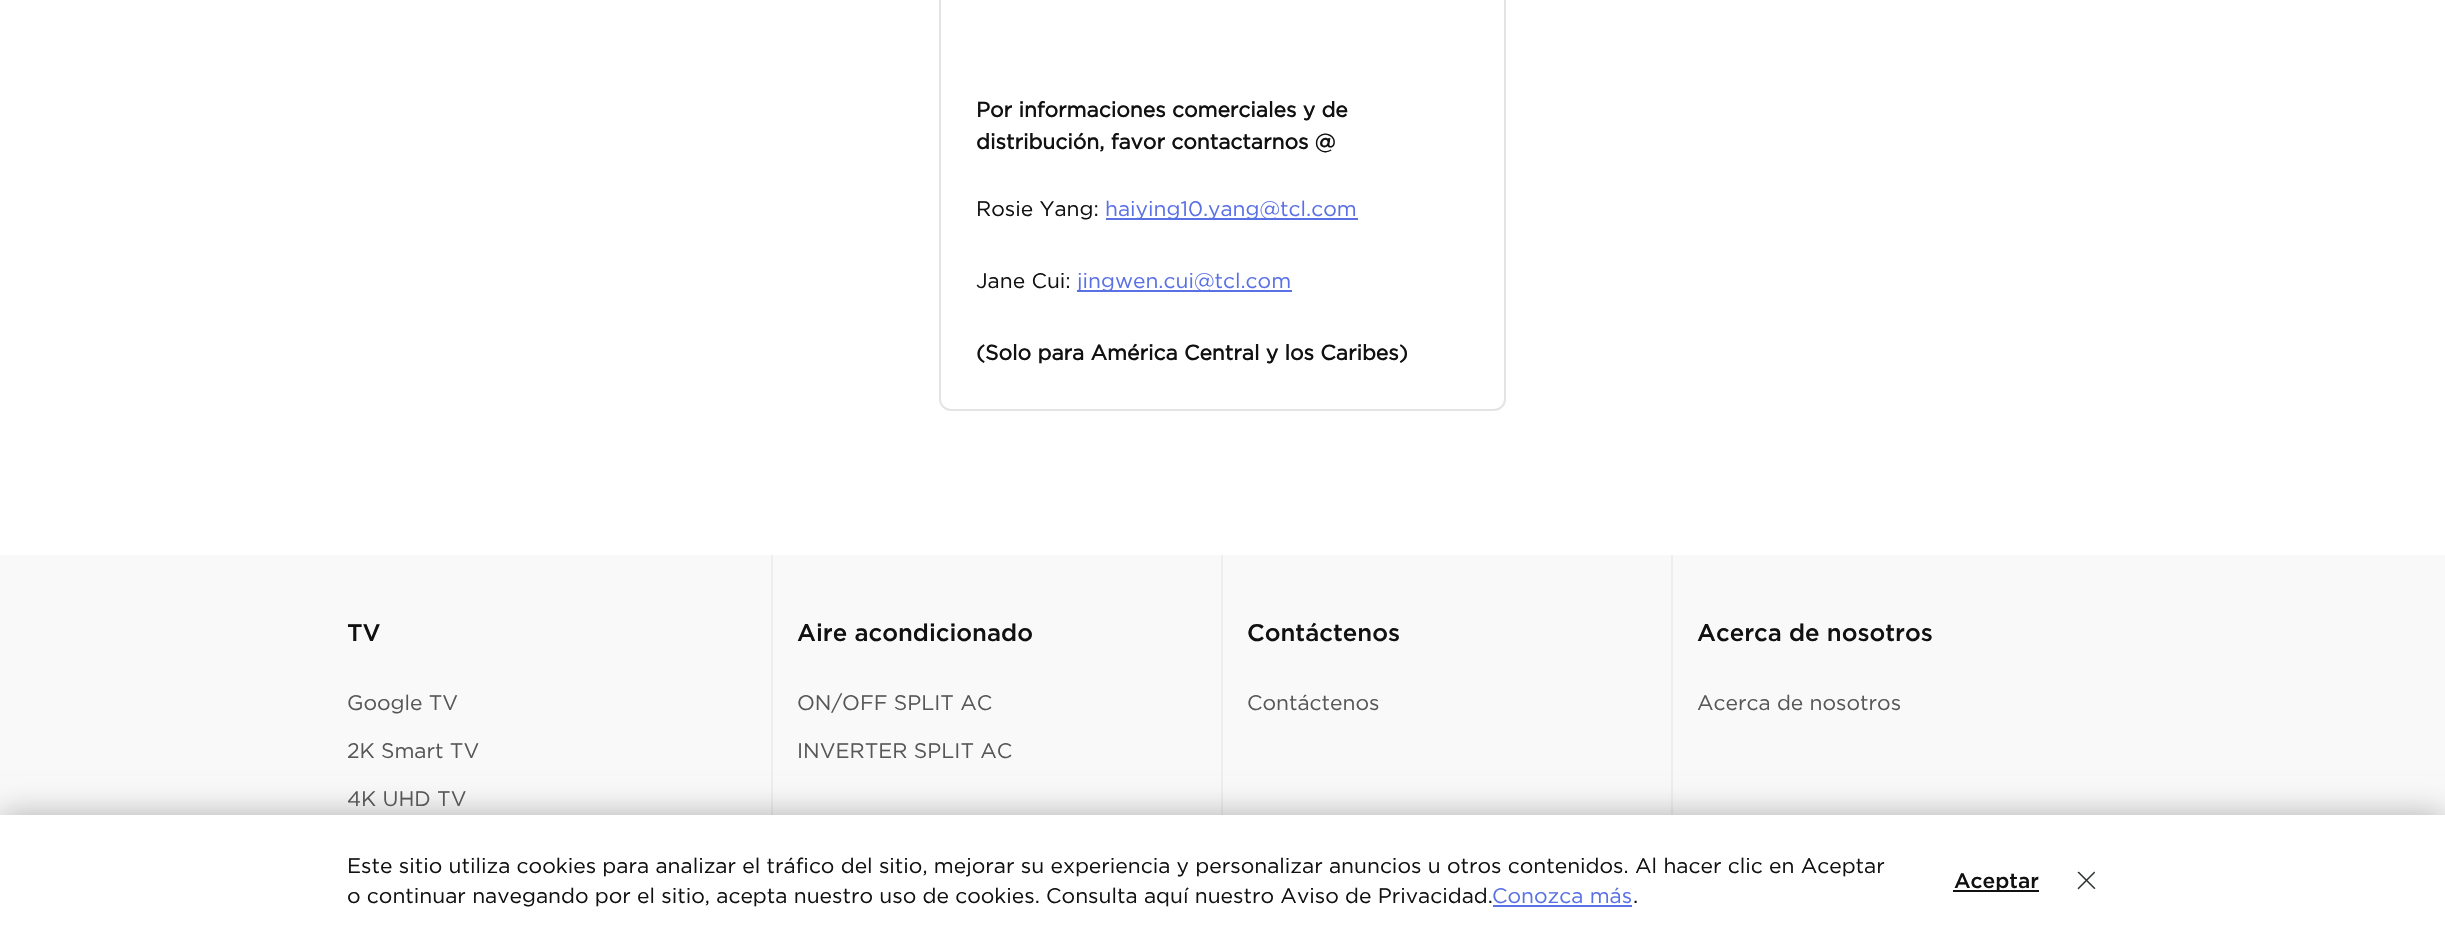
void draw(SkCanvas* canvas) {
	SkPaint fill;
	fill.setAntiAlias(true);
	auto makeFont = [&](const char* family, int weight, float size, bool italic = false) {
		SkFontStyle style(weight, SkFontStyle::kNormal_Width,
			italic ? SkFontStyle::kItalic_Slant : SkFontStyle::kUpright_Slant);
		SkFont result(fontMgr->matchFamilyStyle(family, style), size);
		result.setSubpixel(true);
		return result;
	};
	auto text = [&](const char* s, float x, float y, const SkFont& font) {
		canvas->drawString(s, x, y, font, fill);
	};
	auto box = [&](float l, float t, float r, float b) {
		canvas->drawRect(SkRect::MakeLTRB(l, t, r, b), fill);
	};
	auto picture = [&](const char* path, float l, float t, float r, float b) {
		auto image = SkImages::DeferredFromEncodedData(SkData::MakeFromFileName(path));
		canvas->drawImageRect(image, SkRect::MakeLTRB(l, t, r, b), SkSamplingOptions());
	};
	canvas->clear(0xFFFFFFFF);
	fill.setStyle(SkPaint::kStroke_Style);
	fill.setStrokeWidth(2);
	fill.setColor(0xFFE4E4E4);
	canvas->drawRoundRect(SkRect::MakeLTRB(940, -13, 1505, 410), 11, 11, fill);
	fill.setStyle(SkPaint::kFill_Style);
	fill.setColor(0xFF5971E5);
	box(1106, 218, 1358, 220);
	box(1077, 290, 1292, 292);
	fill.setColor(0xFFF9F9F9);
	box(0, 555, 2445, 815);
	fill.setColor(0xFFEEEEEE);
	box(771, 555, 773, 815);
	box(1221, 555, 1223, 815);
	box(1671, 555, 1673, 815);
	fill.setColor(0x4D000000);
	fill.setMaskFilter(SkMaskFilter::MakeBlur(kNormal_SkBlurStyle, 15));
	canvas->drawRect(SkRect::MakeLTRB(0, 815, 2445, 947), fill);
	fill.setMaskFilter(nullptr);
	fill.setColor(0xFFFFFFFF);
	box(0, 815, 2445, 946);
	fill.setColor(0xFF5971E5);
	box(1493, 905, 1632, 907);
	fill.setColor(0xFF111111);
	box(1953, 890, 2039, 892);
	picture("image0.png", 2077, 871, 2096, 890);
	auto font1 = makeFont("Gotham", 700, 21);
	text("Por informaciones comerciales y de", 976, 117, font1);
	text("distribución, favor contactarnos @", 976, 149, font1);
	auto font2 = makeFont("Gotham", 400, 21);
	text("Rosie Yang:", 976, 216, font2);
	fill.setColor(0xFF5971E5);
	text("haiying10.yang@tcl.com", 1105, 216, font2);
	fill.setColor(0xFF111111);
	text("Jane Cui:", 976, 288, font2);
	fill.setColor(0xFF5971E5);
	text("jingwen.cui@tcl.com", 1077, 288, font2);
	fill.setColor(0xFF111111);
	text("(Solo para América Central y los Caribes)", 976, 360, font1);
	auto font3 = makeFont("Gotham", 500, 24);
	text("TV", 347, 641, font3);
	fill.setColor(0xFF575757);
	text("Google TV", 347, 710, font2);
	text("2K Smart TV", 347, 758, font2);
	text("4K UHD TV", 347, 806, font2);
	fill.setColor(0xFF111111);
	text("Aire acondicionado", 797, 641, font3);
	fill.setColor(0xFF575757);
	text("ON/OFF SPLIT AC", 797, 710, font2);
	text("INVERTER SPLIT AC", 797, 758, font2);
	fill.setColor(0xFF111111);
	text("Contáctenos", 1247, 641, font3);
	fill.setColor(0xFF575757);
	text("Contáctenos", 1247, 710, font2);
	fill.setColor(0xFF111111);
	text("Acerca de nosotros", 1697, 641, font3);
	fill.setColor(0xFF575757);
	text("Acerca de nosotros", 1697, 710, font2);
	fill.setColor(0xFF111111);
	text("Este sitio utiliza cookies para analizar el tráfico del sitio, mejorar su experiencia y personalizar anuncios u otros contenidos. Al hacer clic en Aceptar", 347, 873, font2);
	text("o continuar navegando por el sitio, acepta nuestro uso de cookies. Consulta aquí nuestro Aviso de Privacidad.", 347, 903, font2);
	fill.setColor(0xFF5971E5);
	text("Conozca más", 1492, 903, font2);
	fill.setColor(0xFF111111);
	text(".", 1633, 903, font2);
	auto font4 = makeFont("Gotham", 500, 21);
	text("Aceptar", 1954, 888, font4);
}
